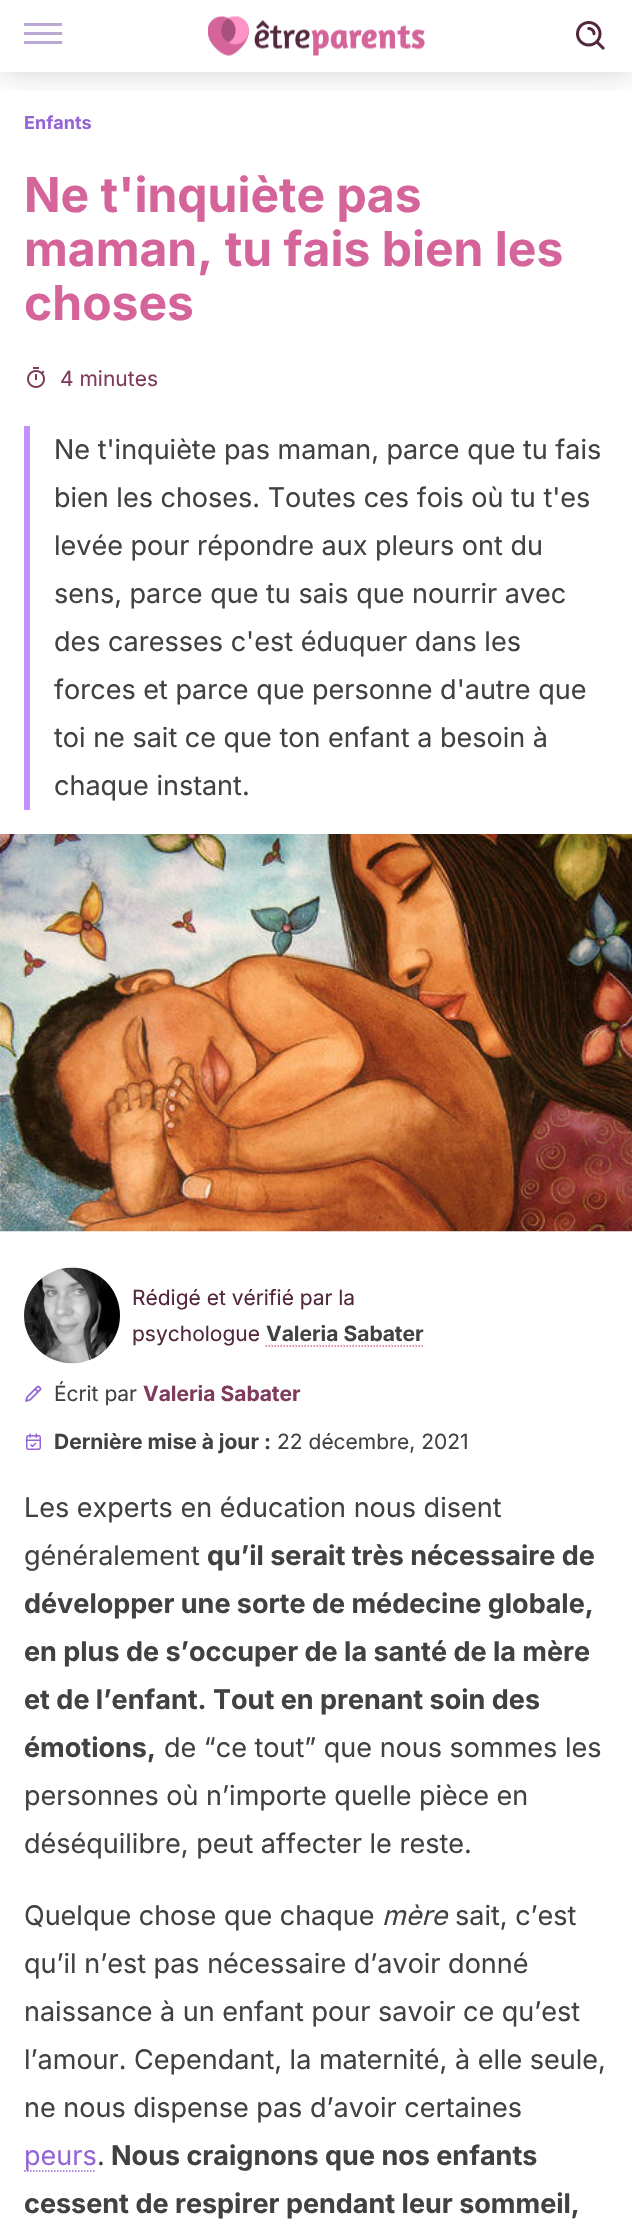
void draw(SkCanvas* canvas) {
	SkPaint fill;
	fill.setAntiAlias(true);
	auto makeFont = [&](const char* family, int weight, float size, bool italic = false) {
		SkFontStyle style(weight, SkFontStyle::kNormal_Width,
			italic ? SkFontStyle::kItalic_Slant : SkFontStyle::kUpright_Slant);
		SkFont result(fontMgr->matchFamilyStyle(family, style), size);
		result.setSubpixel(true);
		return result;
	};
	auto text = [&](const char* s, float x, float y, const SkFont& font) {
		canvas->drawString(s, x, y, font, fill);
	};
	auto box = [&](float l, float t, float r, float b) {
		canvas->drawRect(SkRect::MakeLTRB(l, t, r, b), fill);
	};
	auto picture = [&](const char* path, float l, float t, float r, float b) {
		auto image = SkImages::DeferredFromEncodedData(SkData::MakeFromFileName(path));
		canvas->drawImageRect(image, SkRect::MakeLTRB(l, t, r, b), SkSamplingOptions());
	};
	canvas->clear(0xFFFFFFFF);
	canvas->save();
	canvas->clipRect(SkRect::MakeLTRB(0, 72, 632, 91));
	fill.setColor(0x40000000);
	fill.setMaskFilter(SkMaskFilter::MakeBlur(kNormal_SkBlurStyle, 18));
	canvas->drawRect(SkRect::MakeLTRB(0, -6, 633, 66), fill);
	fill.setMaskFilter(nullptr);
	canvas->restore();
	fill.setColor(0xFFBCA8D5);
	box(24, 23, 62, 26);
	box(24, 32, 62, 35);
	box(24, 41, 62, 44);
	picture("image0.png", 208, 16, 425, 56);
	picture("image1.png", 576, 21, 605, 50);
	picture("image2.png", 27, 367, 45, 388);
	fill.setColor(0xFFC293FF);
	box(24, 426, 30, 810);
	picture("image3.png", 0, 834, 632, 1232);
	picture("image4.png", 24, 1267, 120, 1364);
	fill.setStyle(SkPaint::kStroke_Style);
	fill.setStrokeWidth(1.5f);
	fill.setColor(0xFFD4649A);
	fill.setPathEffect(SkDashPathEffect::Make({{1.5f, 1.5f}}, 0));
	canvas->drawPath(SkPathBuilder().moveTo(265.5f, 1346).lineTo(423, 1346).detach(), fill);
	fill.setPathEffect(nullptr);
	picture("image5.png", 25, 1385, 42, 1402);
	picture("image6.png", 25, 1433, 41, 1450);
	fill.setColor(0xFF9564D5);
	fill.setPathEffect(SkDashPathEffect::Make({{1.5f, 1.5f}}, 0));
	canvas->drawPath(SkPathBuilder().moveTo(24, 2171).lineTo(96, 2171).detach(), fill);
	fill.setPathEffect(nullptr);
	auto font1 = makeFont("Inter", 700, 18);
	fill.setStyle(SkPaint::kFill_Style);
	text("Enfants", 24, 129, font1);
	auto font2 = makeFont("Inter", 700, 48);
	fill.setColor(0xFFD4649A);
	text("Ne t'inquiète pas", 24, 212, font2);
	text("maman, tu fais bien les", 24, 266, font2);
	text("choses", 24, 320, font2);
	auto font3 = makeFont("Inter", 400, 21);
	fill.setColor(0xFF7E3B5B);
	text("4 minutes", 60, 386, font3);
	auto font4 = makeFont("Inter", 400, 27);
	fill.setColor(0xFF414141);
	text("Ne t'inquiète pas maman, parce que tu fais", 54, 459, font4);
	text("bien les choses. Toutes ces fois où tu t'es", 54, 507, font4);
	text("levée pour répondre aux pleurs ont du", 54, 555, font4);
	text("sens, parce que tu sais que nourrir avec", 54, 603, font4);
	text("des caresses c'est éduquer dans les", 54, 651, font4);
	text("forces et parce que personne d'autre que", 54, 699, font4);
	text("toi ne sait ce que ton enfant a besoin à", 54, 747, font4);
	text("chaque instant.", 54, 795, font4);
	fill.setColor(0xFF53273C);
	text("Rédigé et vérifié par la", 132, 1305, font3);
	text("psychologue", 132, 1341, font3);
	auto font5 = makeFont("Inter", 700, 21);
	fill.setColor(0xFF414141);
	text("Valeria Sabater", 266, 1341, font5);
	text("Écrit par", 54, 1401, font3);
	fill.setColor(0xFF7E3B5B);
	text("Valeria Sabater", 143, 1401, font5);
	fill.setColor(0xFF414141);
	text("Dernière mise à jour :", 54, 1449, font5);
	text("22 décembre, 2021", 277, 1449, font3);
	text("Les experts en éducation nous disent", 24, 1517, font4);
	text("généralement", 24, 1565, font4);
	auto font6 = makeFont("Inter", 700, 27);
	text("qu’il serait très nécessaire de", 207, 1565, font6);
	text("développer une sorte de médecine globale,", 24, 1613, font6);
	text("en plus de s’occuper de la santé de la mère", 24, 1661, font6);
	text("et de l’enfant. Tout en prenant soin des", 24, 1709, font6);
	text("émotions,", 24, 1757, font6);
	text("de “ce tout” que nous sommes les", 164, 1757, font4);
	text("personnes où n’importe quelle pièce en", 24, 1805, font4);
	text("déséquilibre, peut affecter le reste.", 24, 1853, font4);
	text("Quelque chose que chaque", 24, 1925, font4);
	auto font7 = makeFont("Inter", 400, 27, true);
	text("mère", 382, 1925, font7);
	text("sait, c’est", 455, 1925, font4);
	text("qu’il n’est pas nécessaire d’avoir donné", 24, 1973, font4);
	text("naissance à un enfant pour savoir ce qu’est", 24, 2021, font4);
	text("l’amour. Cependant, la maternité, à elle seule,", 24, 2069, font4);
	text("ne nous dispense pas d’avoir certaines", 24, 2117, font4);
	fill.setColor(0xFF9564D5);
	text("peurs", 24, 2165, font4);
	fill.setColor(0xFF414141);
	text(".", 97, 2165, font4);
	text("Nous craignons que nos enfants", 111, 2165, font6);
	text("cessent de respirer pendant leur sommeil,", 24, 2213, font6);
}
